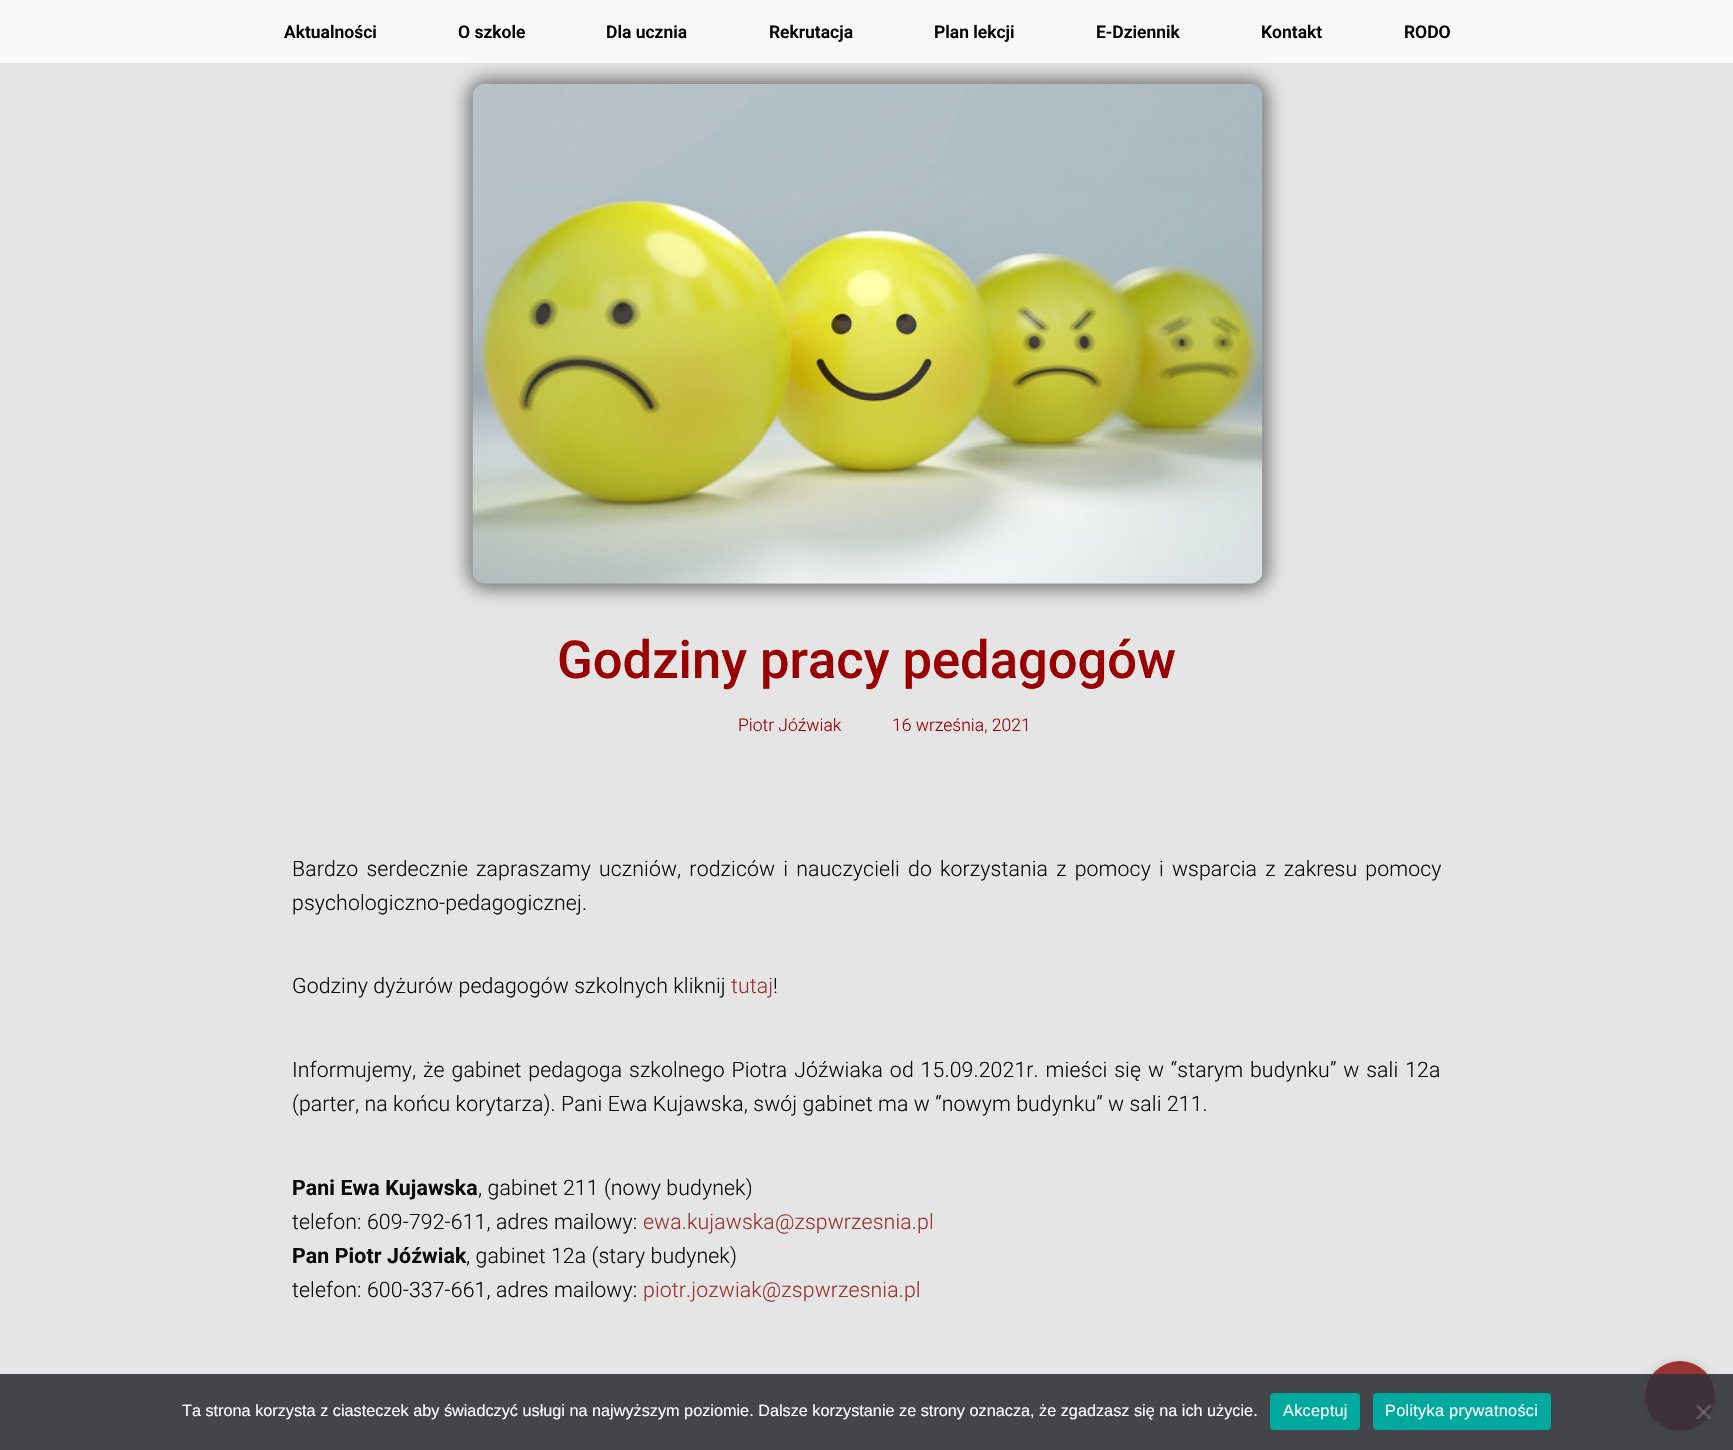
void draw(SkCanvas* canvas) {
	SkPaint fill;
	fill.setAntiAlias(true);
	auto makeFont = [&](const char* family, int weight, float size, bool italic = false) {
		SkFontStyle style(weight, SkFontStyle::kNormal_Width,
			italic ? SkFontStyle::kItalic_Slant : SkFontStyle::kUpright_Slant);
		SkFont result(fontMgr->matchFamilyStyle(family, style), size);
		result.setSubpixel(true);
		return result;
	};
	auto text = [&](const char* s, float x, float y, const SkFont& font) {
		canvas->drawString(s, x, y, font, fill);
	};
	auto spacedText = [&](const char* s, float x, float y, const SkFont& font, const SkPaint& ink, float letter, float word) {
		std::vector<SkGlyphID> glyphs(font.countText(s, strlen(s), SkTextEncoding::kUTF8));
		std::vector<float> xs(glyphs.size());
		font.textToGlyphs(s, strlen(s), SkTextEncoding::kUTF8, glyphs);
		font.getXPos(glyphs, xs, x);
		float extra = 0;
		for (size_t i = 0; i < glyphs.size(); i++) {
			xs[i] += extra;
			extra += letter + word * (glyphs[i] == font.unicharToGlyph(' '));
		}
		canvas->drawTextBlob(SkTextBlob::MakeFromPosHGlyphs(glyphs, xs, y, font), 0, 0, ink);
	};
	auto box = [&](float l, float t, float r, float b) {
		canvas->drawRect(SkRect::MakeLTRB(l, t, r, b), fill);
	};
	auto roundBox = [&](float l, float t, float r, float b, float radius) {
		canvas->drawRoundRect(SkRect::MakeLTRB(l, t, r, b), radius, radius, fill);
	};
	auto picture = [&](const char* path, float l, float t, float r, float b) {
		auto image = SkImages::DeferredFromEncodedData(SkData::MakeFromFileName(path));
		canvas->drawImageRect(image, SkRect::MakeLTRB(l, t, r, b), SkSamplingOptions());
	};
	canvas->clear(0xFFE5E5E5);
	fill.setColor(0x80000000);
	fill.setMaskFilter(SkMaskFilter::MakeBlur(kNormal_SkBlurStyle, 9));
	canvas->drawRoundRect(SkRect::MakeLTRB(468, 79, 1268, 589), 18, 18, fill);
	fill.setMaskFilter(nullptr);
	fill.setColor(0xFFF9F9F9);
	box(0, 0, 1733, 63);
	picture("image0.png", 472, 84, 1263, 584);
	fill.setColor(0x33000000);
	fill.setMaskFilter(SkMaskFilter::MakeBlur(kNormal_SkBlurStyle, 4));
	canvas->drawRoundRect(SkRect::MakeLTRB(1644, 1363, 1716, 1435), 36, 36, fill);
	fill.setMaskFilter(nullptr);
	fill.setColor(0xFF9B3332);
	canvas->drawCircle(1680, 1396, 35, fill);
	fill.setColor(0xE632323A);
	box(0, 1374, 1733, 1450);
	fill.setColor(0xFF00A99D);
	roundBox(1270, 1393, 1360, 1430, 4);
	roundBox(1373, 1393, 1551, 1430, 4);
	fill.setColor(0xFF5E595D);
	canvas->drawPath(SkPathBuilder().moveTo(1709.5f, 1404.5f).lineTo(1711.5f, 1406.5f).lineTo(1698, 1419.5f).lineTo(1696, 1418).close().detach(), fill);
	fill.setColor(0x80808080);
	canvas->drawPath(SkPathBuilder().moveTo(1696, 1406.5f).lineTo(1698, 1404.5f).lineTo(1711.5f, 1418).lineTo(1709.5f, 1419.5f).close().detach(), fill);
	auto font1 = makeFont("Roboto", 600, 17.5f);
	fill.setColor(0xFF000000);
	text("Aktualności", 284, 38, font1);
	text("O szkole", 458, 38, font1);
	text("Dla ucznia", 606, 38, font1);
	text("Rekrutacja", 769, 38, font1);
	text("Plan lekcji", 934, 38, font1);
	text("E-Dziennik", 1096, 38, font1);
	text("Kontakt", 1261, 38, font1);
	text("RODO", 1404, 38, font1);
	auto font2 = makeFont("Roboto", 500, 52.5f);
	fill.setColor(0xFF9B0000);
	text("Godziny pracy pedagogów", 557, 678, font2);
	auto font3 = makeFont("Roboto", 300, 17.5f);
	text("Piotr Jóźwiak", 738, 731, font3);
	text("16 września, 2021", 892, 731, font3);
	auto font4 = makeFont("Roboto", 300, 21.25f);
	fill.setColor(0xFF0A0A0A);
	spacedText("Bardzo serdecznie zapraszamy uczniów, rodziców i nauczycieli do korzystania z pomocy i wsparcia z zakresu pomocy", 292, 876, font4, fill, 0.12f, 2.75f);
	spacedText("psychologiczno-pedagogicznej.", 292, 910, font4, fill, 0.12f, 0);
	spacedText("Godziny dyżurów pedagogów szkolnych kliknij", 292, 993, font4, fill, 0.12f, 0);
	fill.setColor(0xFF9B3332);
	spacedText("tutaj", 731, 993, font4, fill, 0.12f, 0);
	fill.setColor(0xFF0A0A0A);
	spacedText("!", 773, 993, font4, fill, 0.12f, 0);
	spacedText("Informujemy, że gabinet pedagoga szkolnego Piotra Jóźwiaka od 15.09.2021r. mieści się w “starym budynku” w sali 12a", 292, 1077, font4, fill, 0.12f, 1.5f);
	spacedText("(parter, na końcu korytarza). Pani Ewa Kujawska, swój gabinet ma w “nowym budynku” w sali 211.", 292, 1111, font4, fill, 0.12f, 0);
	auto font5 = makeFont("Roboto", 700, 21.25f);
	spacedText("Pani Ewa Kujawska", 292, 1195, font5, fill, 0.12f, 0);
	spacedText(", gabinet 211 (nowy budynek)", 478, 1195, font4, fill, 0.12f, 0);
	spacedText("telefon: 609-792-611, adres mailowy:", 292, 1229, font4, fill, 0.12f, 0);
	fill.setColor(0xFF9B3332);
	spacedText("ewa.kujawska@zspwrzesnia.pl", 643, 1229, font4, fill, 0.12f, 0);
	fill.setColor(0xFF0A0A0A);
	spacedText("Pan Piotr Jóźwiak", 292, 1263, font5, fill, 0.12f, 0);
	spacedText(", gabinet 12a (stary budynek)", 466, 1263, font4, fill, 0.12f, 0);
	spacedText("telefon: 600-337-661, adres mailowy:", 292, 1297, font4, fill, 0.12f, 0);
	fill.setColor(0xFF9B3332);
	spacedText("piotr.jozwiak@zspwrzesnia.pl", 643, 1297, font4, fill, 0.12f, 0);
	auto font6 = makeFont("Liberation Sans", 400, 16.25f);
	fill.setColor(0xFFFFFFFF);
	text("Ta strona korzysta z ciasteczek aby świadczyć usługi na najwyższym poziomie. Dalsze korzystanie ze strony oznacza, że zgadzasz się na ich użycie.", 182, 1416, font6);
	spacedText("Akceptuj", 1283, 1416, font6, fill, 0.3f, 0);
	spacedText("Polityka prywatności", 1385, 1416, font6, fill, 0.3f, 0);
}
